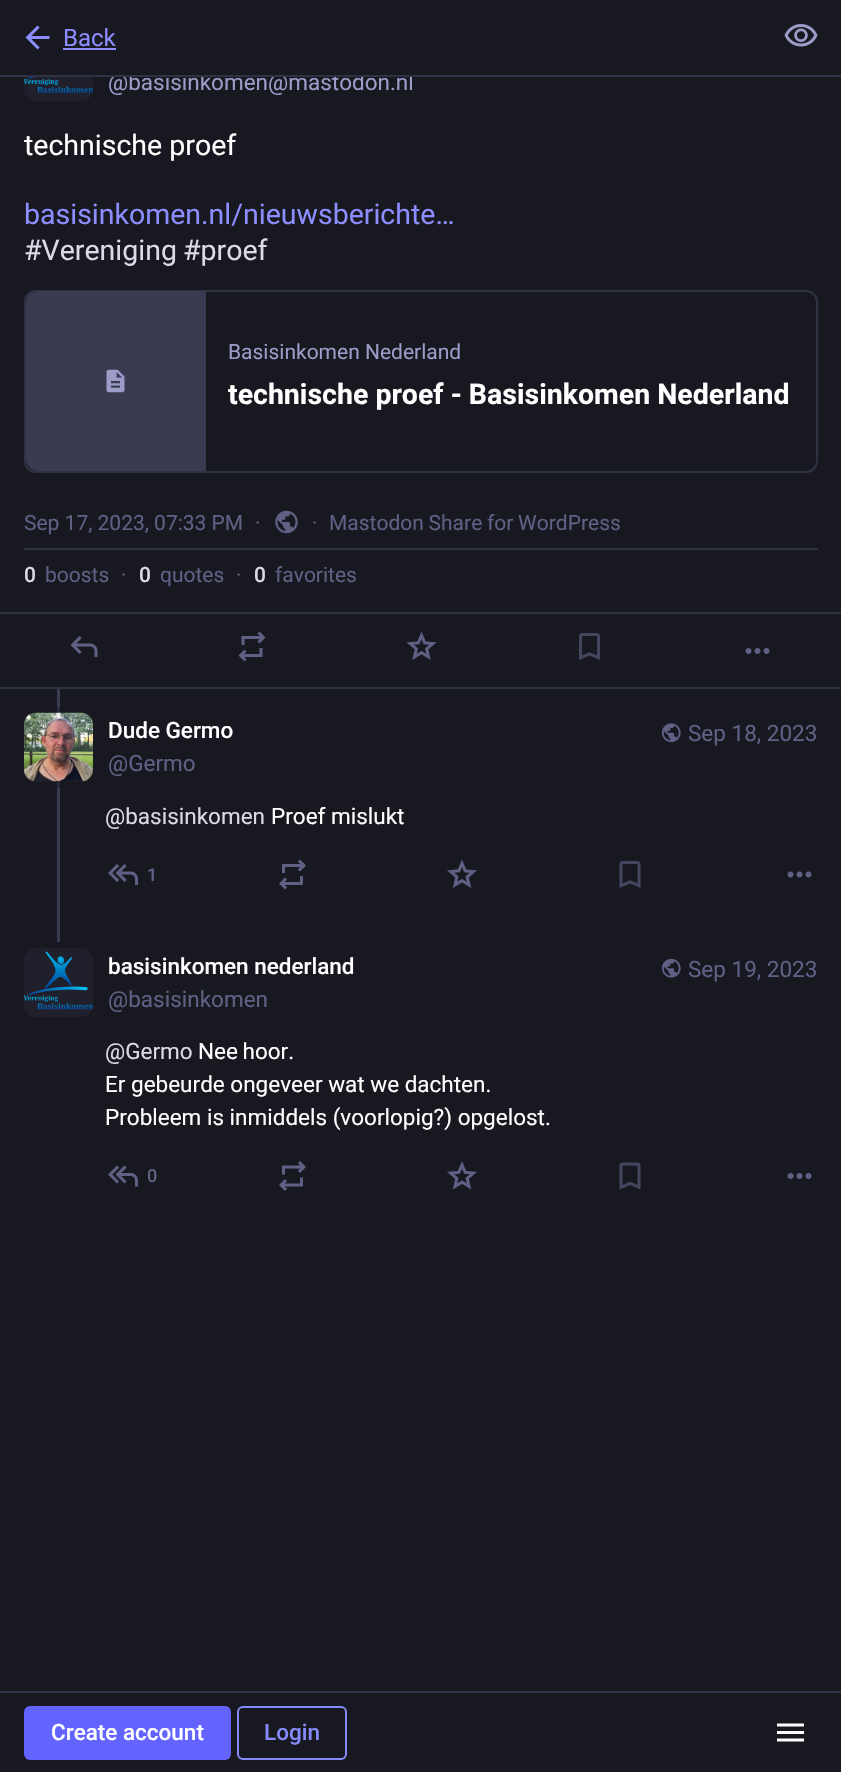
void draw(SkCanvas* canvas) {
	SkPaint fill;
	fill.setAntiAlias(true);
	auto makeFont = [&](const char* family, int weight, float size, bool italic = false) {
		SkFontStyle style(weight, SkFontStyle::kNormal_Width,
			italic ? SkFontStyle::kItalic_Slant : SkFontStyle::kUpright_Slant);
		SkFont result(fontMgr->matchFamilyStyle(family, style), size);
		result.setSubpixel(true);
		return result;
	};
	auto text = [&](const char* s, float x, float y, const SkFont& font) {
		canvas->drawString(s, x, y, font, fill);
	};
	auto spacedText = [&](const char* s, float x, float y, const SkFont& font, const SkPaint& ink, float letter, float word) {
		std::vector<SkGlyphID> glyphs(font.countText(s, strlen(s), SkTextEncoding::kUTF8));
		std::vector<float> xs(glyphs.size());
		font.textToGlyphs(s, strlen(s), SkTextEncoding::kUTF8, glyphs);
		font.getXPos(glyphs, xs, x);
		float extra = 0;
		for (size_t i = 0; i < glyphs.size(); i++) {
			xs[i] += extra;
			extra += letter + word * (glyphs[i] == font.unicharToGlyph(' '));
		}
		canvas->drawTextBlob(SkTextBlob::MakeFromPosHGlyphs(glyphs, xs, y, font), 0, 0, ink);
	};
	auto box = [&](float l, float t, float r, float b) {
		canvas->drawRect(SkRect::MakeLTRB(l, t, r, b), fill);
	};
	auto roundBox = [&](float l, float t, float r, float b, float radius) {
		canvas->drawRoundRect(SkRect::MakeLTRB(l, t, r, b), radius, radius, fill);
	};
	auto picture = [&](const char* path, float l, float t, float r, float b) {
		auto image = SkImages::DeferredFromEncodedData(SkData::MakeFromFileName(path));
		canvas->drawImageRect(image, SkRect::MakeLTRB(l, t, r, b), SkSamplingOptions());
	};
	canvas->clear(0xFF181821);
	picture("image1.png", 784, 24, 818, 47);
	fill.setColor(0xFF20202C);
	roundBox(24, 32, 93, 101, 12);
	picture("image2.png", 24, 77, 93, 93);
	fill.setStyle(SkPaint::kStroke_Style);
	fill.setStrokeWidth(2);
	fill.setColor(0xFF313144);
	canvas->drawRoundRect(SkRect::MakeLTRB(25, 291, 817, 472), 11, 11, fill);
	canvas->save();
	canvas->clipPath(SkPathBuilder().moveTo(37, 291).lineTo(805, 291).cubicTo(811, 291, 816, 296, 816, 302).lineTo(816, 460).cubicTo(816, 466, 811, 471, 805, 471).lineTo(37, 471).cubicTo(31, 471, 26, 466, 26, 460).lineTo(26, 302).cubicTo(26, 296, 31, 291, 37, 291).close().detach(), true);
	fill.setStyle(SkPaint::kFill_Style);
	fill.setColor(0xFF3A3A50);
	canvas->drawPath(SkPathBuilder().moveTo(38, 291).lineTo(206, 291).lineTo(206, 471).lineTo(38, 471).cubicTo(31.5f, 471, 26, 465.5f, 26, 459).lineTo(26, 303).cubicTo(26, 296.5f, 31.5f, 291, 38, 291).close().detach(), fill);
	canvas->restore();
	picture("image3.png", 106, 369, 125, 393);
	fill.setColor(0xFF313144);
	box(24, 548, 818, 550);
	picture("image4.png", 275, 510, 298, 534);
	box(0, 612, 841, 614);
	box(0, 687, 841, 689);
	picture("image5.png", 70, 636, 98, 657);
	picture("image6.png", 238, 631, 266, 662);
	picture("image7.png", 406, 631, 437, 660);
	picture("image8.png", 579, 633, 600, 660);
	picture("image9.png", 745, 648, 770, 654);
	fill.setColor(0xFF3A3A50);
	box(57, 689, 60, 942);
	fill.setColor(0xFF292938);
	box(57, 707, 60, 788);
	fill.setColor(0xFF20202C);
	roundBox(24, 713, 93, 782, 12);
	picture("image10.png", 24, 712, 93, 782);
	picture("image11.png", 661, 723, 681, 743);
	picture("image12.png", 108, 864, 138, 885);
	picture("image13.png", 279, 859, 306, 890);
	picture("image14.png", 447, 859, 477, 888);
	picture("image15.png", 619, 861, 641, 888);
	picture("image16.png", 787, 871, 812, 878);
	roundBox(24, 948, 93, 1017, 12);
	picture("image17.png", 24, 951, 93, 1010);
	picture("image18.png", 661, 958, 681, 978);
	picture("image19.png", 108, 1165, 138, 1187);
	picture("image20.png", 279, 1161, 306, 1191);
	picture("image21.png", 447, 1161, 477, 1190);
	picture("image22.png", 619, 1162, 641, 1190);
	picture("image9.png", 787, 1173, 812, 1179);
	fill.setColor(0xFF313144);
	box(0, 1691, 841, 1693);
	fill.setColor(0xFF6364FF);
	roundBox(24, 1706, 231, 1760, 6);
	fill.setStyle(SkPaint::kStroke_Style);
	fill.setColor(0xFF858AFA);
	canvas->drawRoundRect(SkRect::MakeLTRB(238, 1707, 346, 1759), 5, 5, fill);
	picture("image23.png", 777, 1723, 804, 1742);
	auto font1 = makeFont("Roboto", 400, 22.5f);
	fill.setStyle(SkPaint::kFill_Style);
	fill.setColor(0xFF9C9CC9);
	text("@basisinkomen@mastodon.nl", 108, 90, font1);
	fill.setColor(0xFF181821);
	box(24, 32, 413, 75);
	picture("image0.png", 25, 25, 50, 50);
	auto font2 = makeFont("Roboto", 400, 24);
	fill.setColor(0xFF8C8DFF);
	text("Back", 63, 46, font2);
	box(63, 48, 116, 50);
	fill.setColor(0xFF313144);
	box(0, 75, 841, 77);
	auto font3 = makeFont("Roboto", 400, 28.5f);
	fill.setColor(0xFFFFFFFF);
	text("technische proef", 24, 155, font3);
	fill.setColor(0xFF8C8DFF);
	text("basisinkomen.nl/nieuwsberichte…", 24, 224, font3);
	fill.setColor(0xFFDDD9E8);
	text("#Vereniging", 24, 260, font3);
	text("#proef", 183, 260, font3);
	auto font4 = makeFont("Roboto", 400, 21);
	fill.setColor(0xFF9C9CC9);
	text("Basisinkomen Nederland", 228, 359, font4);
	auto font5 = makeFont("Roboto", 700, 28.5f);
	fill.setColor(0xFFFFFFFF);
	text("technische proef - Basisinkomen Nederland", 228, 404, font5);
	fill.setColor(0xFF606085);
	text("Sep 17, 2023, 07:33 PM", 24, 530, font4);
	text("·", 255, 530, font4);
	text("·", 312, 530, font4);
	spacedText("Mastodon Share for WordPress", 329, 530, font4, fill, 0, -0.5f);
	auto font6 = makeFont("Roboto", 500, 21);
	fill.setColor(0xFFDDD9E8);
	text("0", 24, 582, font6);
	fill.setColor(0xFF606085);
	text("boosts", 45, 582, font4);
	text("·", 121, 582, font4);
	canvas->save();
	canvas->clipRect(SkRect::MakeLTRB(140, 561, 150, 588));
	fill.setColor(0xFFDDD9E8);
	text("0", 139, 582, font6);
	canvas->restore();
	fill.setColor(0xFF606085);
	text("quotes", 160, 582, font4);
	text("·", 236, 582, font4);
	fill.setColor(0xFFDDD9E8);
	text("0", 254, 582, font6);
	fill.setColor(0xFF606085);
	text("favorites", 275, 582, font4);
	auto font7 = makeFont("Roboto", 500, 22.5f);
	fill.setColor(0xFFFFFFFF);
	text("Dude Germo", 108, 738, font7);
	fill.setColor(0xFF606085);
	text("@Germo", 108, 771, font1);
	text("Sep 18, 2023", 688, 741, font1);
	fill.setColor(0xFFDDD9E8);
	text("@basisinkomen", 105, 824, font1);
	fill.setColor(0xFFFFFFFF);
	text("Proef mislukt", 271, 824, font1);
	auto font8 = makeFont("Roboto", 500, 18);
	fill.setColor(0xFF606085);
	text("1", 147, 881, font8);
	fill.setColor(0xFFFFFFFF);
	text("basisinkomen nederland", 108, 974, font7);
	fill.setColor(0xFF606085);
	text("@basisinkomen", 108, 1007, font1);
	text("Sep 19, 2023", 688, 977, font1);
	fill.setColor(0xFFDDD9E8);
	text("@Germo", 105, 1059, font1);
	fill.setColor(0xFFFFFFFF);
	spacedText("Nee hoor.", 198, 1059, font1, fill, 0, -1);
	text("Er gebeurde ongeveer wat we dachten.", 105, 1092, font1);
	text("Probleem is inmiddels (voorlopig?) opgelost.", 105, 1125, font1);
	fill.setColor(0xFF606085);
	text("0", 147, 1182, font8);
	fill.setColor(0xFFFFFFFF);
	text("Create account", 51, 1740, font7);
	fill.setColor(0xFF858AFA);
	text("Login", 264, 1740, font7);
}
